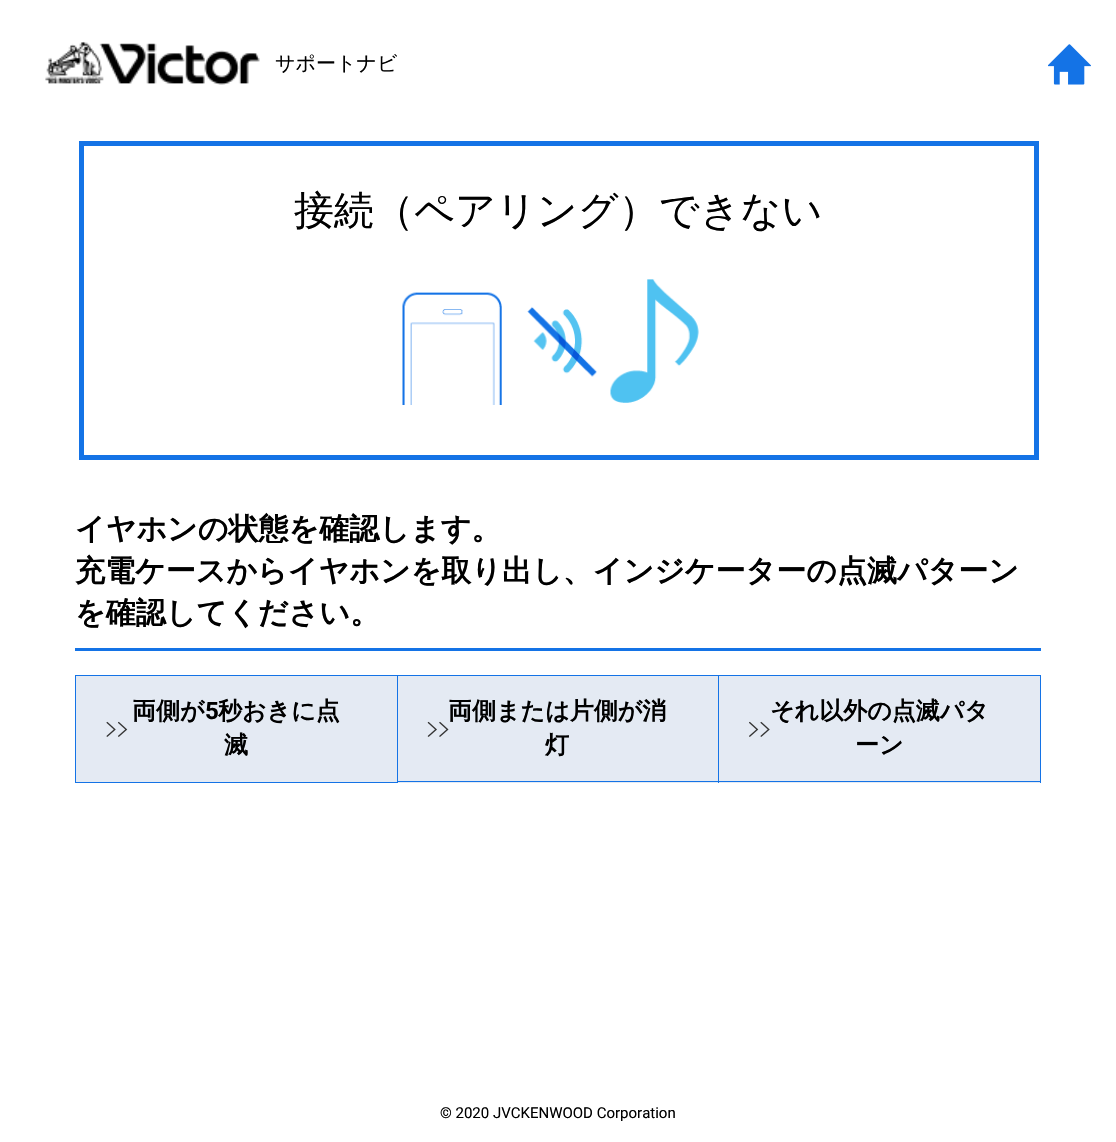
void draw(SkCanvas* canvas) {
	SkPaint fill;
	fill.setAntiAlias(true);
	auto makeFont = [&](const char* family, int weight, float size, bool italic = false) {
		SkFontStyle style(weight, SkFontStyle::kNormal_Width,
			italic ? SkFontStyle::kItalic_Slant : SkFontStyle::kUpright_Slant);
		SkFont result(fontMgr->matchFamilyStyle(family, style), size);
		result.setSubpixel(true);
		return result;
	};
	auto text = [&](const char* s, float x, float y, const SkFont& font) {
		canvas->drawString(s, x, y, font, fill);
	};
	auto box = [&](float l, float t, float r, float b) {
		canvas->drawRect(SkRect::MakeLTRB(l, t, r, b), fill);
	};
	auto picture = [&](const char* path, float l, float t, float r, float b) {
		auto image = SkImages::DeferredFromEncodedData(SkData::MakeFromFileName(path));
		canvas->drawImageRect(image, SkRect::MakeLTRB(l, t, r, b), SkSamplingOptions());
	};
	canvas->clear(0xFFFFFFFF);
	picture("image0.png", 45, 41, 260, 85);
	picture("image1.png", 1048, 44, 1091, 85);
	fill.setStyle(SkPaint::kStroke_Style);
	fill.setStrokeWidth(5);
	fill.setColor(0xFF1473E6);
	canvas->drawRect(SkRect::MakeLTRB(81.5f, 143.5f, 1036.5f, 457.5f), fill);
	picture("image2.png", 402, 279, 699, 405);
	fill.setStyle(SkPaint::kFill_Style);
	box(75, 648, 1041, 651);
	fill.setColor(0xFFE4EAF3);
	canvas->drawRect(SkRect::MakeLTRB(75.5f, 675.5f, 397.5f, 782.5f), fill);
	fill.setStyle(SkPaint::kStroke_Style);
	fill.setStrokeWidth(1);
	fill.setColor(0xFF1473E6);
	canvas->drawRect(SkRect::MakeLTRB(75.5f, 675.5f, 397.5f, 782.5f), fill);
	picture("image3.png", 106, 721, 128, 737);
	fill.setStyle(SkPaint::kFill_Style);
	fill.setColor(0xFFE4EAF3);
	box(398, 676, 718, 783);
	fill.setColor(0xFF1473E6);
	box(398, 675, 1041, 676);
	box(718, 675, 719, 783);
	box(398, 781, 719, 782);
	picture("image4.png", 427, 721, 449, 737);
	fill.setColor(0xFFE4EAF3);
	box(719, 676, 1040, 783);
	fill.setColor(0xFF1473E6);
	box(1040, 675, 1041, 783);
	box(719, 781, 1041, 782);
	picture("image5.png", 749, 721, 770, 737);
	auto font1 = makeFont("WenQuanYi Zen Hei", 500, 20);
	fill.setColor(0xFF000000);
	text("サポートナビ", 275, 70, font1);
	auto font2 = makeFont("WenQuanYi Zen Hei", 500, 40);
	text("接続（ペアリング）できない", 294, 224, font2);
	auto font3 = makeFont("WenQuanYi Zen Hei", 700, 30);
	text("イヤホンの状態を確認します。", 75, 539, font3);
	text("充電ケースからイヤホンを取り出し、インジケーターの点滅パターン", 75, 581, font3);
	text("を確認してください。", 75, 623, font3);
	auto font4 = makeFont("WenQuanYi Zen Hei", 700, 24);
	text("両側が", 132, 719, font4);
	auto font5 = makeFont("Roboto", 700, 24);
	text("5", 205, 719, font5);
	text("秒おきに点", 218, 719, font4);
	text("滅", 224, 753, font4);
	text("両側または片側が消", 448, 719, font4);
	text("灯", 545, 753, font4);
	text("それ以外の点滅パタ", 770, 719, font4);
	text("ーン", 855, 753, font4);
	auto font6 = makeFont("Roboto", 400, 15);
	text("© 2020 JVCKENWOOD Corporation", 440, 1118, font6);
}
